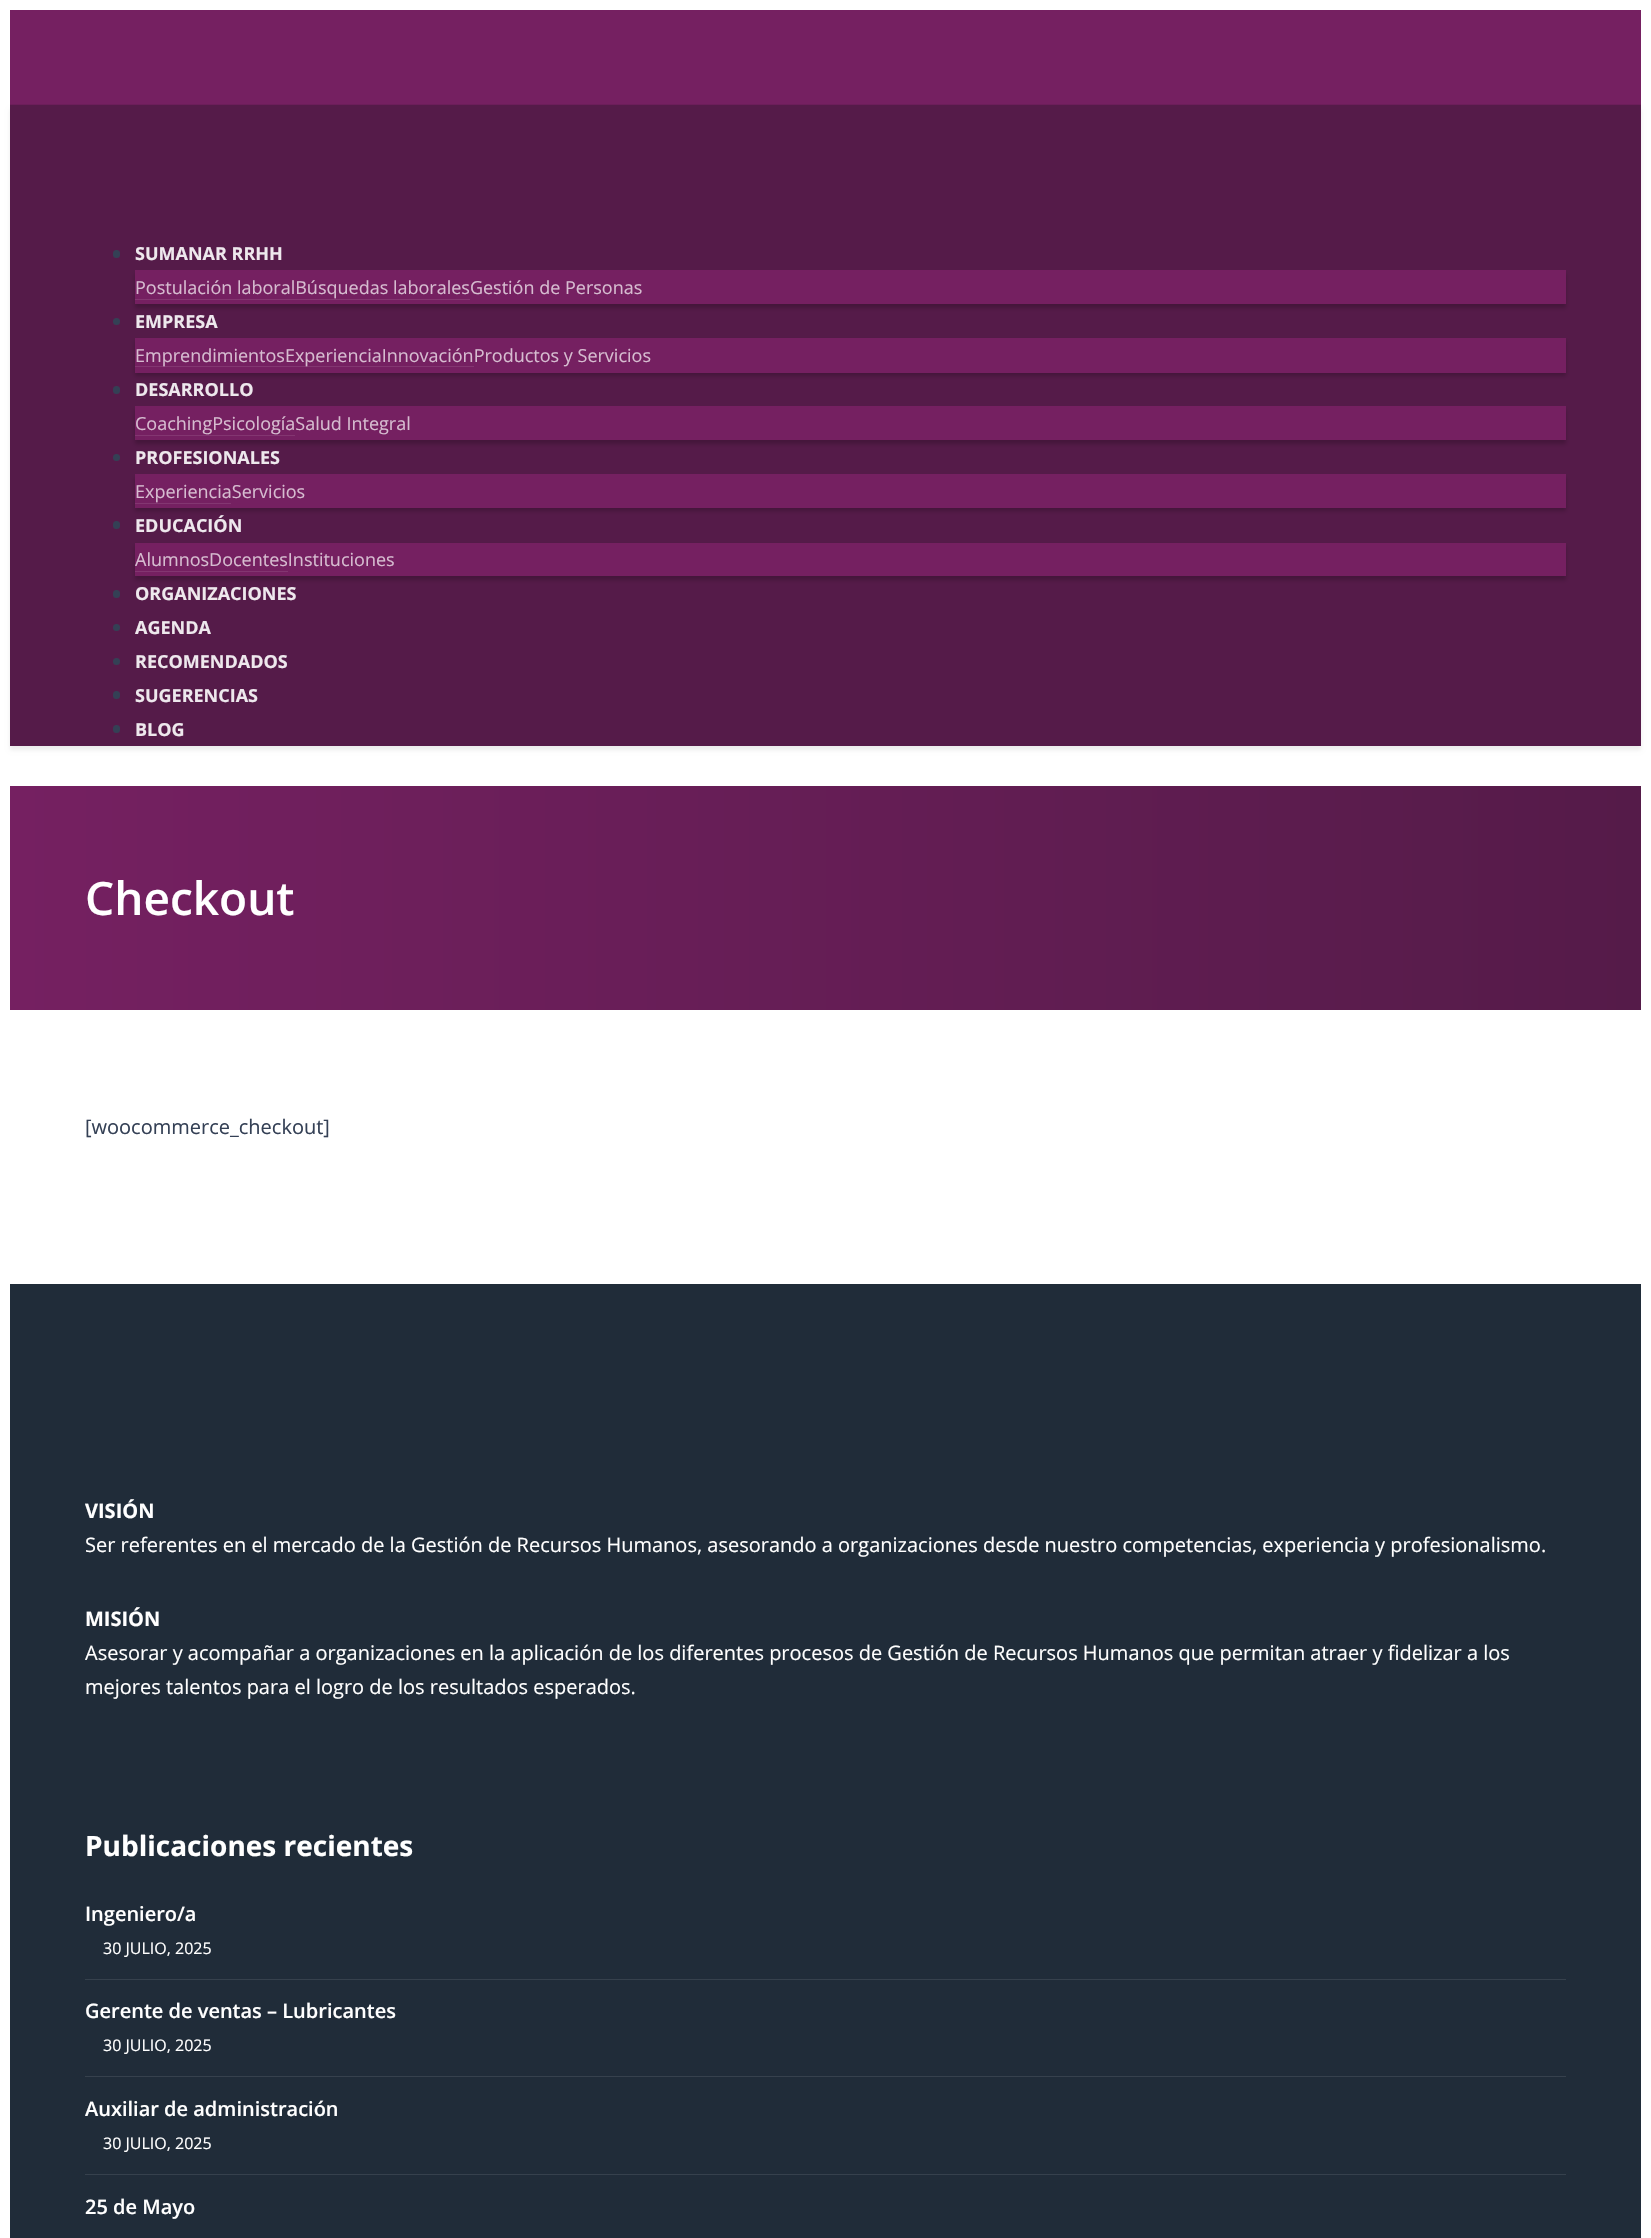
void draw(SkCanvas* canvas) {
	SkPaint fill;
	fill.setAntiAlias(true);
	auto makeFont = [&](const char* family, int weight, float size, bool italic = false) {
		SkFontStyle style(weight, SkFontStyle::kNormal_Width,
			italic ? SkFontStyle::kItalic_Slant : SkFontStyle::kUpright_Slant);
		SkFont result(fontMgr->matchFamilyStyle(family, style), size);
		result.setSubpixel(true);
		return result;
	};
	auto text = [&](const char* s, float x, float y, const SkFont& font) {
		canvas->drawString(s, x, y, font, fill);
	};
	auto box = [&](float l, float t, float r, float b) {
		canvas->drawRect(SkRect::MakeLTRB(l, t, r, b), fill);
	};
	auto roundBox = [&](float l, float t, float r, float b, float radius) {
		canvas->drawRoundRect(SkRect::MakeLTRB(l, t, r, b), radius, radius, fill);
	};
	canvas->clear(0xFFFFFFFF);
	fill.setColor(0x12000000);
	fill.setMaskFilter(SkMaskFilter::MakeBlur(kNormal_SkBlurStyle, 2));
	canvas->drawRect(SkRect::MakeLTRB(10, 109, 1641, 750), fill);
	fill.setMaskFilter(nullptr);
	fill.setColor(0xFF752061);
	box(10, 10, 1641, 104);
	fill.setColor(0xFF6C1E5A);
	box(10, 104, 1641, 105);
	fill.setColor(0xFF551B49);
	box(10, 105, 1641, 746);
	fill.setColor(0xFF344055);
	roundBox(113, 250, 120, 258, 3.5f);
	fill.setColor(0x33000000);
	fill.setMaskFilter(SkMaskFilter::MakeBlur(kNormal_SkBlurStyle, 2));
	canvas->drawRect(SkRect::MakeLTRB(135, 274, 1566, 308), fill);
	fill.setMaskFilter(nullptr);
	fill.setColor(0xFF752061);
	box(135, 270, 1566, 304);
	fill.setColor(0xFF833671);
	box(135, 299, 470, 300);
	fill.setColor(0xFF344055);
	canvas->drawCircle(116.5f, 321.5f, 3.5f, fill);
	fill.setColor(0x33000000);
	fill.setMaskFilter(SkMaskFilter::MakeBlur(kNormal_SkBlurStyle, 2));
	canvas->drawRect(SkRect::MakeLTRB(135, 341, 1566, 376), fill);
	fill.setMaskFilter(nullptr);
	fill.setColor(0xFF752061);
	box(135, 338, 1566, 373);
	fill.setColor(0xFF833671);
	box(135, 366, 474, 367);
	fill.setColor(0xFF344055);
	roundBox(113, 386, 120, 394, 3.5f);
	fill.setColor(0x33000000);
	fill.setMaskFilter(SkMaskFilter::MakeBlur(kNormal_SkBlurStyle, 2));
	canvas->drawRect(SkRect::MakeLTRB(135, 410, 1566, 444), fill);
	fill.setMaskFilter(nullptr);
	fill.setColor(0xFF752061);
	box(135, 406, 1566, 440);
	fill.setColor(0xFF833671);
	box(135, 435, 295, 436);
	fill.setColor(0xFF344055);
	canvas->drawCircle(116.5f, 457.5f, 3.5f, fill);
	fill.setColor(0x33000000);
	fill.setMaskFilter(SkMaskFilter::MakeBlur(kNormal_SkBlurStyle, 2));
	canvas->drawRect(SkRect::MakeLTRB(135, 478, 1566, 511), fill);
	fill.setMaskFilter(nullptr);
	fill.setColor(0xFF752061);
	box(135, 474, 1566, 508);
	fill.setColor(0xFF833671);
	box(135, 503, 231, 504);
	fill.setColor(0xFF344055);
	roundBox(113, 521, 120, 529, 3.5f);
	fill.setColor(0x33000000);
	fill.setMaskFilter(SkMaskFilter::MakeBlur(kNormal_SkBlurStyle, 2));
	canvas->drawRect(SkRect::MakeLTRB(135, 546, 1566, 580), fill);
	fill.setMaskFilter(nullptr);
	fill.setColor(0xFF752061);
	box(135, 543, 1566, 576);
	fill.setColor(0xFF833671);
	box(135, 571, 288, 572);
	fill.setColor(0xFF344055);
	roundBox(113, 590, 120, 598, 3.5f);
	canvas->drawCircle(116.5f, 627.5f, 3.5f, fill);
	canvas->drawCircle(116.5f, 661.5f, 3.5f, fill);
	roundBox(113, 691, 120, 699, 3.5f);
	roundBox(113, 725, 120, 733, 3.5f);
	{
		const SkColor colors[] = {0xFF752061, 0xFF551B49};
		const float stops[] = {0, 1};
		const SkPoint ends[] = {{10, 898}, {1641, 898}};
		fill.setShader(SkGradientShader::MakeLinear(ends, colors, stops, 2, SkTileMode::kClamp));
		fill.setAlpha(255);
	}
	box(10, 786, 1641, 1010);
	fill.setShader(nullptr);
	fill.setColor(0xFF202C39);
	box(10, 1284, 1641, 2238);
	fill.setColor(0xFF36414D);
	box(85, 1979, 1566, 1980);
	box(85, 2076, 1566, 2077);
	box(85, 2174, 1566, 2175);
	auto font1 = makeFont("Open Sans", 700, 18);
	fill.setColor(0xFFEEE8ED);
	text("SUMANAR RRHH", 135, 260, font1);
	auto font2 = makeFont("Open Sans", 400, 18);
	fill.setColor(0xFFD6BCD0);
	text("Postulación laboralBúsquedas laboralesGestión de Personas", 135, 294, font2);
	fill.setColor(0xFFEEE8ED);
	text("EMPRESA", 135, 328, font1);
	fill.setColor(0xFFD6BCD0);
	text("EmprendimientosExperienciaInnovaciónProductos y Servicios", 135, 362, font2);
	fill.setColor(0xFFEEE8ED);
	text("DESARROLLO", 135, 396, font1);
	fill.setColor(0xFFD6BCD0);
	text("CoachingPsicologíaSalud Integral", 135, 430, font2);
	fill.setColor(0xFFEEE8ED);
	text("PROFESIONALES", 135, 464, font1);
	fill.setColor(0xFFD6BCD0);
	text("ExperienciaServicios", 135, 498, font2);
	fill.setColor(0xFFEEE8ED);
	text("EDUCACIÓN", 135, 532, font1);
	fill.setColor(0xFFD6BCD0);
	text("AlumnosDocentesInstituciones", 135, 566, font2);
	fill.setColor(0xFFEEE8ED);
	text("ORGANIZACIONES", 135, 600, font1);
	text("AGENDA", 135, 634, font1);
	text("RECOMENDADOS", 135, 668, font1);
	text("SUGERENCIAS", 135, 702, font1);
	text("BLOG", 135, 736, font1);
	auto font3 = makeFont("Open Sans", 600, 46);
	fill.setColor(0xFFFFFFFF);
	text("Checkout", 85, 915, font3);
	auto font4 = makeFont("Open Sans", 400, 20);
	fill.setColor(0xFF344055);
	text("[woocommerce_checkout]", 85, 1134, font4);
	auto font5 = makeFont("Open Sans", 700, 20);
	fill.setColor(0xFFFFFFFF);
	text("VISIÓN", 85, 1518, font5);
	text("Ser referentes en el mercado de la Gestión de Recursos Humanos, asesorando a organizaciones desde nuestro competencias, experiencia y profesionalismo.", 85, 1552, font4);
	text("MISIÓN", 85, 1626, font5);
	text("Asesorar y acompañar a organizaciones en la aplicación de los diferentes procesos de Gestión de Recursos Humanos que permitan atraer y fidelizar a los", 85, 1660, font4);
	text("mejores talentos para el logro de los resultados esperados.", 85, 1694, font4);
	auto font6 = makeFont("Open Sans", 700, 28);
	text("Publicaciones recientes", 85, 1856, font6);
	auto font7 = makeFont("Open Sans", 600, 20);
	text("Ingeniero/a", 85, 1921, font7);
	auto font8 = makeFont("Open Sans", 400, 16);
	text("30 JULIO, 2025", 103, 1954, font8);
	text("Gerente de ventas – Lubricantes", 85, 2018, font7);
	text("30 JULIO, 2025", 103, 2051, font8);
	text("Auxiliar de administración", 85, 2116, font7);
	text("30 JULIO, 2025", 103, 2149, font8);
	text("25 de Mayo", 85, 2214, font7);
}
